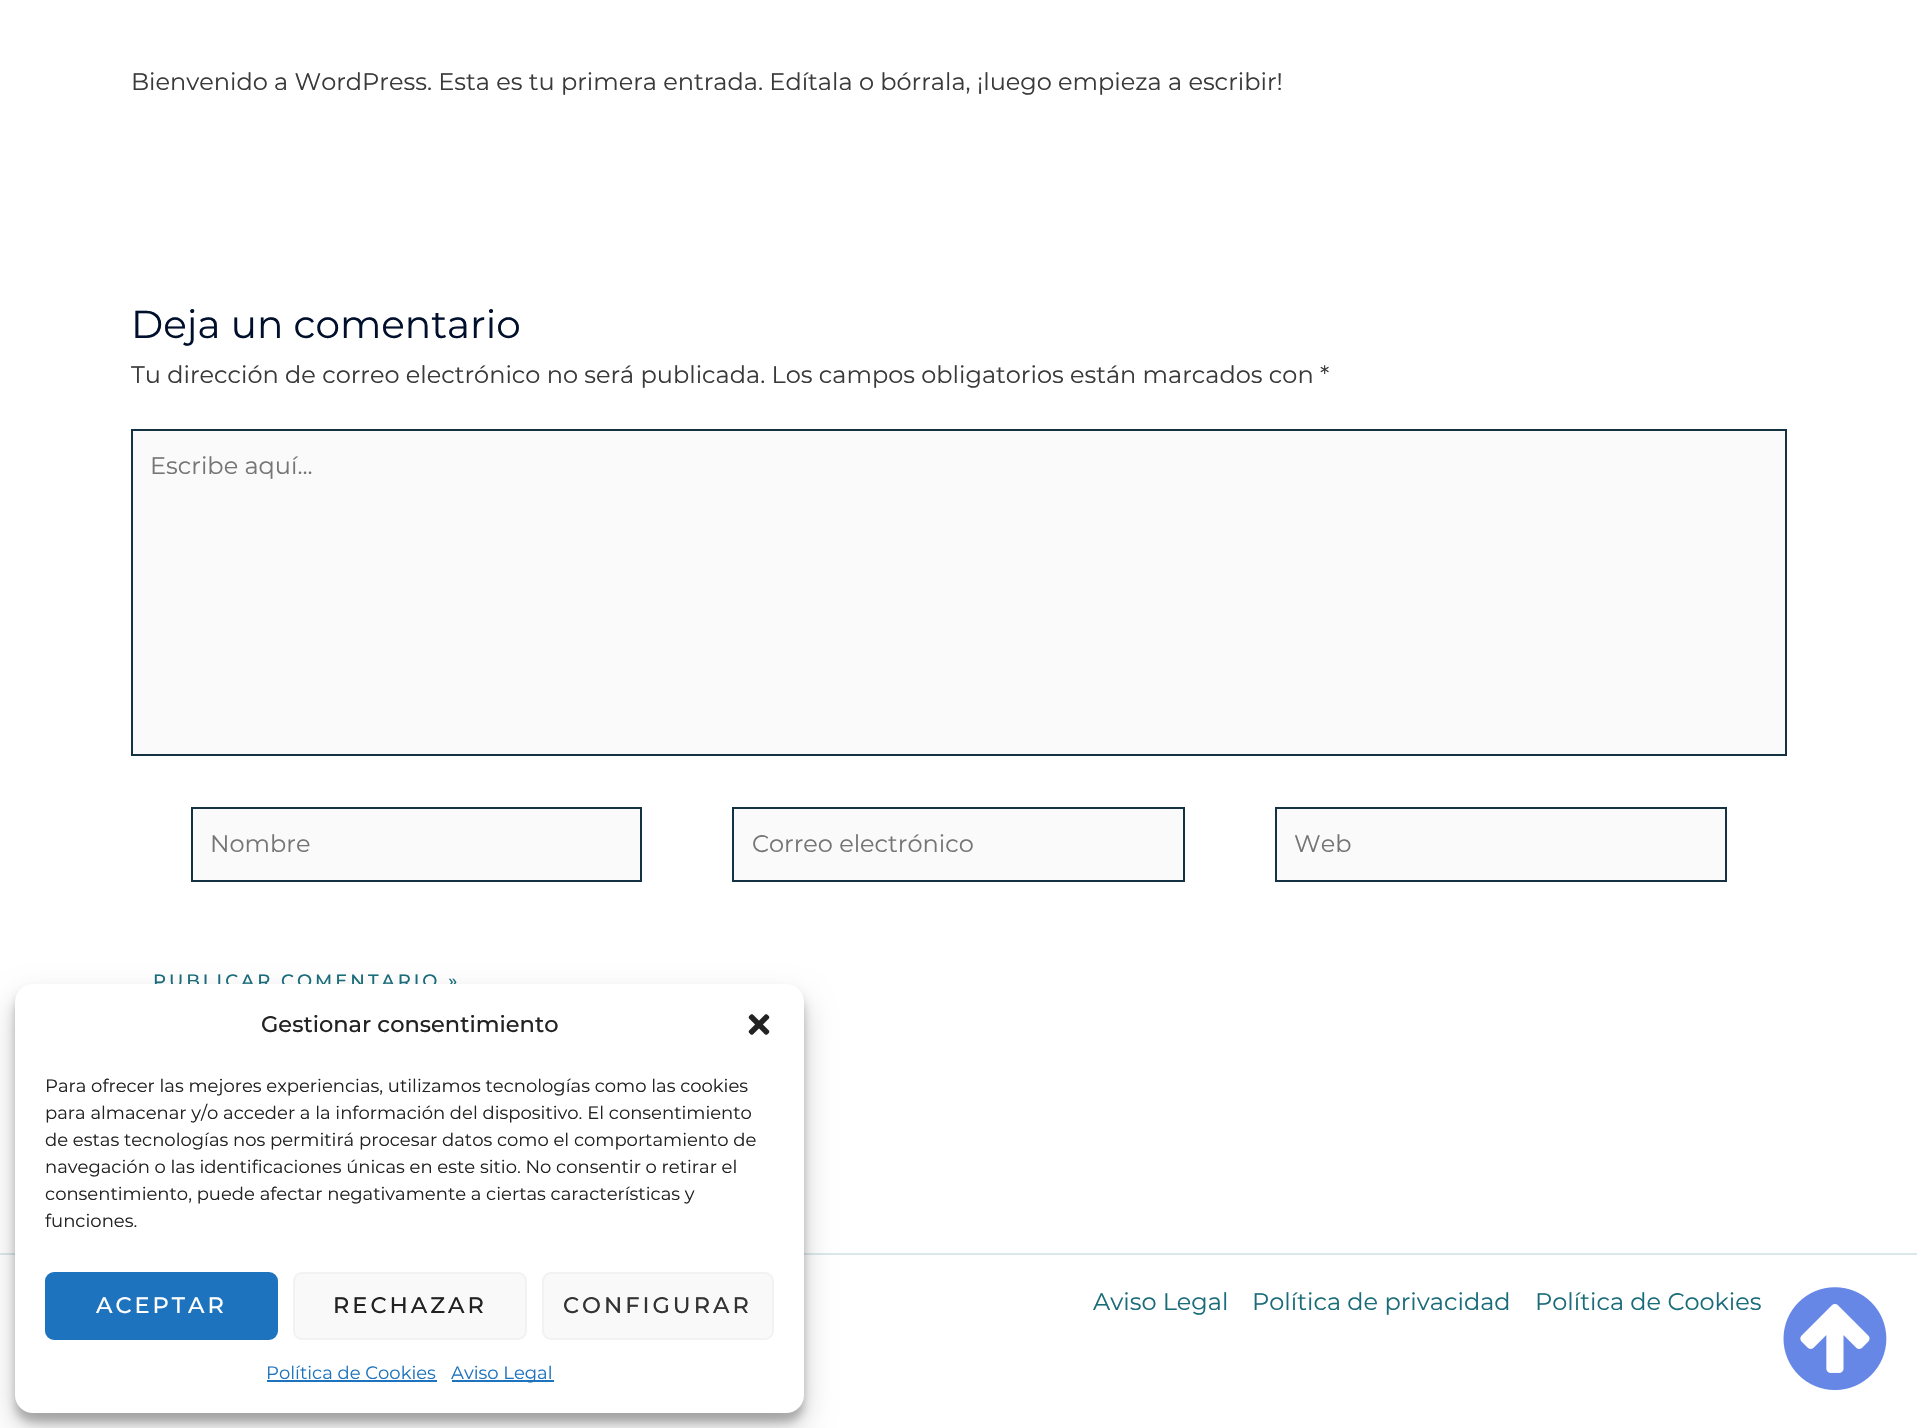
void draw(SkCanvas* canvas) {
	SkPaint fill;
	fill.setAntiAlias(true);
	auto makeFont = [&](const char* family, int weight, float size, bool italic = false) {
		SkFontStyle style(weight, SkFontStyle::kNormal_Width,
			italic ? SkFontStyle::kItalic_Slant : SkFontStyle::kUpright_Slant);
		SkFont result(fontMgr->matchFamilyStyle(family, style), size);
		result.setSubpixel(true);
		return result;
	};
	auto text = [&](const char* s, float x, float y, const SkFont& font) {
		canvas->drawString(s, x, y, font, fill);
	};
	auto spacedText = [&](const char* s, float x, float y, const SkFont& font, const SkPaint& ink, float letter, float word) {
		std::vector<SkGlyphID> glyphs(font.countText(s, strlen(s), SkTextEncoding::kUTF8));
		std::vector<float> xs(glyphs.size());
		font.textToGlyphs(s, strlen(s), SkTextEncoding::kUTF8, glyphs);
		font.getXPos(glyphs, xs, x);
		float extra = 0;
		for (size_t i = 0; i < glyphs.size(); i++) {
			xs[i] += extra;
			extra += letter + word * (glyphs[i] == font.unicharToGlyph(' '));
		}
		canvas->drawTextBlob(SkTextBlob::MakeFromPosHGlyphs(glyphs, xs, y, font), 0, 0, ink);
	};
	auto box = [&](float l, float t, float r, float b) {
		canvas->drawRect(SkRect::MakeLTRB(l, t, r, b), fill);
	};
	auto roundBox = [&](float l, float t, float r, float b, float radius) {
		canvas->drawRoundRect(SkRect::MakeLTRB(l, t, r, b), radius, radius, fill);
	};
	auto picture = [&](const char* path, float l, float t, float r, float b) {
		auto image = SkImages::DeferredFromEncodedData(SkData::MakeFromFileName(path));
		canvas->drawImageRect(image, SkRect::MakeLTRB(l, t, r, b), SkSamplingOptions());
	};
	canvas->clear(0xFFFFFFFF);
	fill.setColor(0xFFFAFAFA);
	canvas->drawRect(SkRect::MakeLTRB(132, 430, 1786, 755), fill);
	fill.setStyle(SkPaint::kStroke_Style);
	fill.setStrokeWidth(2);
	fill.setColor(0xFF153243);
	canvas->drawRect(SkRect::MakeLTRB(132, 430, 1786, 755), fill);
	fill.setStyle(SkPaint::kFill_Style);
	fill.setColor(0xFFFAFAFA);
	canvas->drawRect(SkRect::MakeLTRB(192, 808, 641, 881), fill);
	fill.setStyle(SkPaint::kStroke_Style);
	fill.setColor(0xFF153243);
	canvas->drawRect(SkRect::MakeLTRB(192, 808, 641, 881), fill);
	fill.setStyle(SkPaint::kFill_Style);
	fill.setColor(0xFFFAFAFA);
	canvas->drawRect(SkRect::MakeLTRB(733, 808, 1184, 881), fill);
	fill.setStyle(SkPaint::kStroke_Style);
	fill.setColor(0xFF153243);
	canvas->drawRect(SkRect::MakeLTRB(733, 808, 1184, 881), fill);
	fill.setStyle(SkPaint::kFill_Style);
	fill.setColor(0xFFFAFAFA);
	canvas->drawRect(SkRect::MakeLTRB(1276, 808, 1726, 881), fill);
	fill.setStyle(SkPaint::kStroke_Style);
	fill.setColor(0xFF153243);
	canvas->drawRect(SkRect::MakeLTRB(1276, 808, 1726, 881), fill);
	fill.setStyle(SkPaint::kFill_Style);
	fill.setColor(0xFFDBE8EB);
	box(0, 1253, 1917, 1255);
	fill.setColor(0x3B000000);
	fill.setMaskFilter(SkMaskFilter::MakeBlur(kNormal_SkBlurStyle, 4.5f));
	canvas->drawRoundRect(SkRect::MakeLTRB(15, 993, 804, 1422), 18, 18, fill);
	fill.setMaskFilter(nullptr);
	fill.setColor(0x30000000);
	fill.setMaskFilter(SkMaskFilter::MakeBlur(kNormal_SkBlurStyle, 15));
	canvas->drawRoundRect(SkRect::MakeLTRB(15, 999, 804, 1428), 18, 18, fill);
	fill.setMaskFilter(nullptr);
	picture("image1.png", 1783, 1287, 1887, 1391);
	auto font1 = makeFont("Montserrat", 400, 24);
	fill.setColor(0xFF3A3A3A);
	text("Bienvenido a WordPress. Esta es tu primera entrada. Edítala o bórrala, ¡luego empieza a escribir!", 131, 90, font1);
	auto font2 = makeFont("Montserrat", 400, 39);
	fill.setColor(0xFF000F2B);
	text("Deja un comentario", 131, 338, font2);
	fill.setColor(0xFF3A3A3A);
	text("Tu dirección de correo electrónico no será publicada. Los campos obligatorios están marcados con *", 131, 383, font1);
	fill.setColor(0xFF757575);
	text("Escribe aquí...", 150, 474, font1);
	text("Nombre", 210, 852, font1);
	text("Correo electrónico", 752, 852, font1);
	text("Web", 1294, 852, font1);
	auto font3 = makeFont("Montserrat", 500, 18);
	fill.setColor(0xFF1A6C7A);
	spacedText("PUBLICAR COMENTARIO »", 153, 987, font3, fill, 3, 0);
	text("Aviso Legal", 1093, 1310, font1);
	text("Política de privacidad", 1252, 1310, font1);
	text("Política de Cookies", 1535, 1310, font1);
	fill.setColor(0xFFFFFFFF);
	roundBox(15, 984, 804, 1413, 18);
	auto font4 = makeFont("Montserrat", 500, 22.5f);
	fill.setColor(0xFF222222);
	text("Gestionar consentimiento", 261, 1032, font4);
	picture("image0.png", 748, 1014, 770, 1035);
	auto font5 = makeFont("Montserrat", 400, 18);
	text("Para ofrecer las mejores experiencias, utilizamos tecnologías como las cookies", 45, 1092, font5);
	text("para almacenar y/o acceder a la información del dispositivo. El consentimiento", 45, 1119, font5);
	text("de estas tecnologías nos permitirá procesar datos como el comportamiento de", 45, 1146, font5);
	text("navegación o las identificaciones únicas en este sitio. No consentir o retirar el", 45, 1173, font5);
	text("consentimiento, puede afectar negativamente a ciertas características y", 45, 1200, font5);
	text("funciones.", 45, 1227, font5);
	fill.setColor(0xFF1E73BE);
	canvas->drawRoundRect(SkRect::MakeLTRB(46, 1273, 277, 1339), 8, 8, fill);
	fill.setStyle(SkPaint::kStroke_Style);
	canvas->drawRoundRect(SkRect::MakeLTRB(46, 1273, 277, 1339), 8, 8, fill);
	fill.setStyle(SkPaint::kFill_Style);
	fill.setColor(0xFFFFFFFF);
	spacedText("ACEPTAR", 96, 1313, font4, fill, 3, 0);
	fill.setColor(0xFFF9F9F9);
	canvas->drawRoundRect(SkRect::MakeLTRB(294, 1273, 526, 1339), 8, 8, fill);
	fill.setStyle(SkPaint::kStroke_Style);
	fill.setColor(0xFFF2F2F2);
	canvas->drawRoundRect(SkRect::MakeLTRB(294, 1273, 526, 1339), 8, 8, fill);
	fill.setStyle(SkPaint::kFill_Style);
	fill.setColor(0xFF222222);
	spacedText("RECHAZAR", 333, 1313, font4, fill, 3, 0);
	fill.setColor(0xFFF9F9F9);
	canvas->drawRoundRect(SkRect::MakeLTRB(543, 1273, 773, 1339), 8, 8, fill);
	fill.setStyle(SkPaint::kStroke_Style);
	fill.setColor(0xFFF2F2F2);
	canvas->drawRoundRect(SkRect::MakeLTRB(543, 1273, 773, 1339), 8, 8, fill);
	fill.setStyle(SkPaint::kFill_Style);
	fill.setColor(0xFF333333);
	spacedText("CONFIGURAR", 563, 1313, font4, fill, 3, 0);
	fill.setColor(0xFF1E73BE);
	text("Política de Cookies", 266, 1379, font5);
	box(267, 1380, 437, 1382);
	box(452, 1380, 554, 1382);
	text("Aviso Legal", 451, 1379, font5);
}
